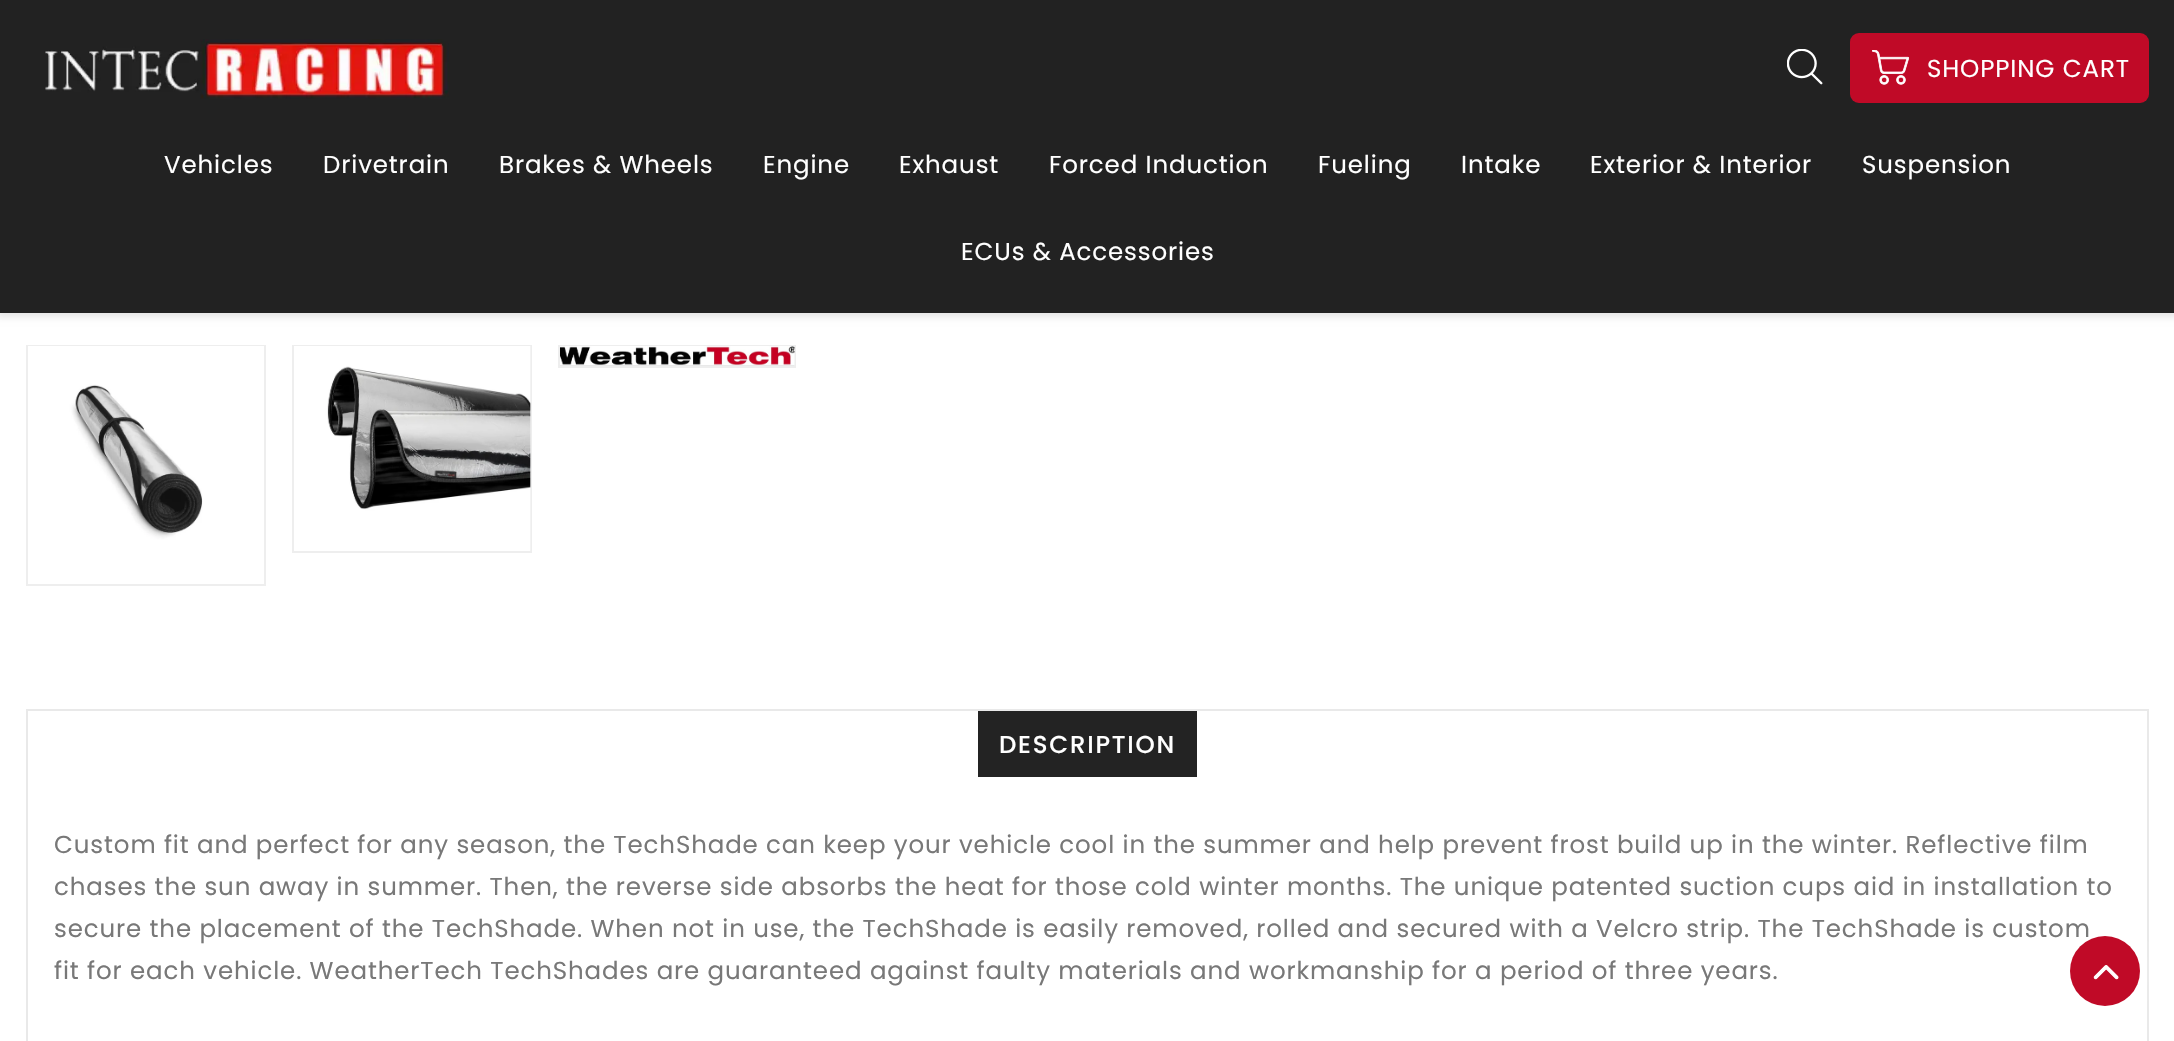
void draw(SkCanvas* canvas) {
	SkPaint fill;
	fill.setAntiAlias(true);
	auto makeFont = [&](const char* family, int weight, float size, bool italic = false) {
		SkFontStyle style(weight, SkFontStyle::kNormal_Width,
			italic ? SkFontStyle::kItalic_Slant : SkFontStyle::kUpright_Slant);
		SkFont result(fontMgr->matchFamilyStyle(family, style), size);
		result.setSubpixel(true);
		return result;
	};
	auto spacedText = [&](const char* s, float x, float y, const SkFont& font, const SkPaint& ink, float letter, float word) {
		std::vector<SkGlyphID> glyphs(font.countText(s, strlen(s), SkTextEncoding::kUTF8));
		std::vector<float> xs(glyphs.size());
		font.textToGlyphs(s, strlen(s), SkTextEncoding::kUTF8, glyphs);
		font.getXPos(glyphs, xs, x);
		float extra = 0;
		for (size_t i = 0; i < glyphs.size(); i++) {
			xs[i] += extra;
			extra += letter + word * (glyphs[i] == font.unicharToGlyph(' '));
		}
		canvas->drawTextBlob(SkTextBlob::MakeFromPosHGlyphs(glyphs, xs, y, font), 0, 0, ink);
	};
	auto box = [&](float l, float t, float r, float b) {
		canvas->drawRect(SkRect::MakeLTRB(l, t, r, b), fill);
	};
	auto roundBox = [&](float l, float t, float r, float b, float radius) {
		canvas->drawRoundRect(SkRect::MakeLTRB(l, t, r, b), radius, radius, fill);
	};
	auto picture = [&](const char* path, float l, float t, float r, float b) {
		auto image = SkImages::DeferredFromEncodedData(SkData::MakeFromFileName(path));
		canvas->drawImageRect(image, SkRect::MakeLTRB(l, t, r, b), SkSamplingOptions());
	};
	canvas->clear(0xFFFFFFFF);
	fill.setColor(0x1A000000);
	fill.setMaskFilter(SkMaskFilter::MakeBlur(kNormal_SkBlurStyle, 3.5f));
	canvas->drawRect(SkRect::MakeLTRB(-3, -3, 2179, 317), fill);
	fill.setMaskFilter(nullptr);
	fill.setColor(0xFF222222);
	box(0, 0, 2174, 313);
	picture("image0.png", 45, 39, 449, 99);
	picture("image1.png", 1787, 49, 1823, 85);
	fill.setColor(0xFFC00A27);
	roundBox(1850, 33, 2149, 103, 9);
	picture("image2.png", 1872, 50, 1910, 85);
	fill.setStyle(SkPaint::kStroke_Style);
	fill.setStrokeWidth(2);
	fill.setColor(0xFFEEEEEE);
	canvas->drawRect(SkRect::MakeLTRB(27, 346, 265, 585), fill);
	picture("image3.png", 28, 346, 264, 584);
	canvas->drawRect(SkRect::MakeLTRB(293, 346, 531, 552), fill);
	picture("image4.png", 294, 346, 531, 551);
	fill.setStyle(SkPaint::kFill_Style);
	fill.setColor(0xFFE9E9E9);
	box(560, 365, 794, 366);
	fill.setStyle(SkPaint::kStroke_Style);
	fill.setColor(0xFFEEEEEE);
	canvas->drawRect(SkRect::MakeLTRB(559, 346, 795, 367), fill);
	picture("image5.png", 560, 346, 795, 365);
	fill.setColor(0xFFE9E9E9);
	canvas->drawRect(SkRect::MakeLTRB(27, 710, 2148, 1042), fill);
	fill.setStyle(SkPaint::kFill_Style);
	fill.setColor(0xFF232323);
	box(978, 711, 1197, 777);
	fill.setColor(0x33FFFFFF);
	fill.setMaskFilter(SkMaskFilter::MakeBlur(kNormal_SkBlurStyle, 9));
	canvas->drawRoundRect(SkRect::MakeLTRB(2063, 929, 2147, 1013), 42, 42, fill);
	fill.setMaskFilter(nullptr);
	auto font1 = makeFont("Poppins", 400, 24.5f);
	fill.setColor(0xFFFFFFFF);
	spacedText("SHOPPING CART", 1927, 77, font1, fill, 0.88f, 0);
	spacedText("Vehicles", 164, 173, font1, fill, 0.88f, 0);
	spacedText("Drivetrain", 323, 173, font1, fill, 0.88f, 0);
	spacedText("Brakes & Wheels", 499, 173, font1, fill, 0.88f, 0);
	spacedText("Engine", 763, 173, font1, fill, 0.88f, 0);
	spacedText("Exhaust", 899, 173, font1, fill, 0.88f, 0);
	spacedText("Forced Induction", 1049, 173, font1, fill, 0.88f, 0);
	spacedText("Fueling", 1318, 173, font1, fill, 0.88f, 0);
	spacedText("Intake", 1461, 173, font1, fill, 0.88f, 0);
	spacedText("Exterior & Interior", 1590, 173, font1, fill, 0.88f, 0);
	spacedText("Suspension", 1862, 173, font1, fill, 0.88f, 0);
	spacedText("ECUs & Accessories", 961, 260, font1, fill, 0.88f, 0);
	auto font2 = makeFont("Poppins", 500, 24.5f);
	spacedText("DESCRIPTION", 999, 753, font2, fill, 1.75f, 0);
	fill.setColor(0xFF787878);
	spacedText("Custom fit and perfect for any season, the TechShade can keep your vehicle cool in the summer and help prevent frost build up in the winter. Reflective film", 54, 853, font1, fill, 0.88f, 0);
	spacedText("chases the sun away in summer. Then, the reverse side absorbs the heat for those cold winter months. The unique patented suction cups aid in installation to", 54, 895, font1, fill, 0.88f, 0);
	spacedText("secure the placement of the TechShade. When not in use, the TechShade is easily removed, rolled and secured with a Velcro strip. The TechShade is custom", 54, 937, font1, fill, 0.88f, 0);
	spacedText("fit for each vehicle. WeatherTech TechShades are guaranteed against faulty materials and workmanship for a period of three years.", 54, 979, font1, fill, 0.88f, 0);
	fill.setColor(0xFFC00A27);
	canvas->drawCircle(2105, 971, 35, fill);
	picture("image6.png", 2093, 965, 2119, 980);
}
